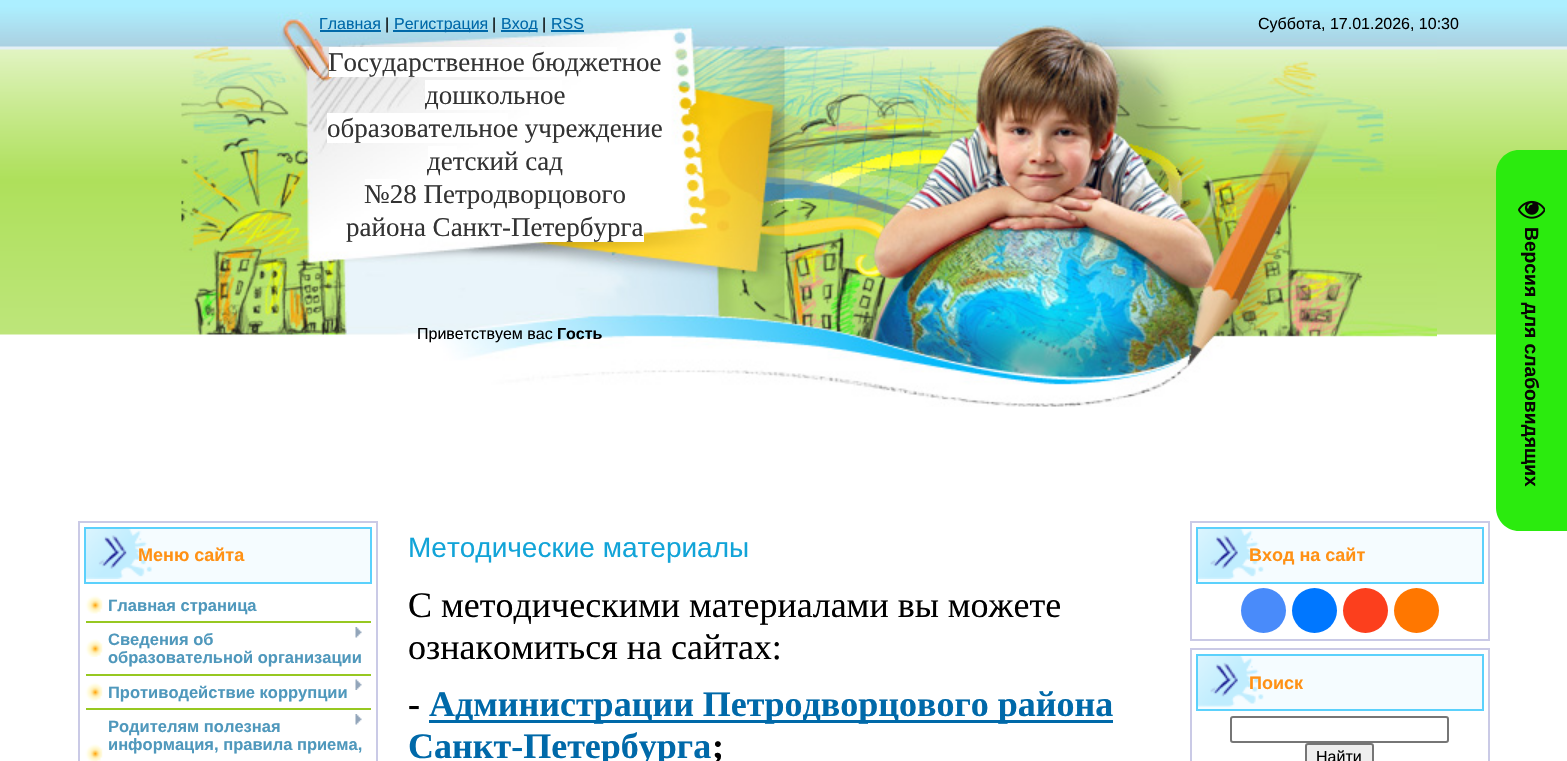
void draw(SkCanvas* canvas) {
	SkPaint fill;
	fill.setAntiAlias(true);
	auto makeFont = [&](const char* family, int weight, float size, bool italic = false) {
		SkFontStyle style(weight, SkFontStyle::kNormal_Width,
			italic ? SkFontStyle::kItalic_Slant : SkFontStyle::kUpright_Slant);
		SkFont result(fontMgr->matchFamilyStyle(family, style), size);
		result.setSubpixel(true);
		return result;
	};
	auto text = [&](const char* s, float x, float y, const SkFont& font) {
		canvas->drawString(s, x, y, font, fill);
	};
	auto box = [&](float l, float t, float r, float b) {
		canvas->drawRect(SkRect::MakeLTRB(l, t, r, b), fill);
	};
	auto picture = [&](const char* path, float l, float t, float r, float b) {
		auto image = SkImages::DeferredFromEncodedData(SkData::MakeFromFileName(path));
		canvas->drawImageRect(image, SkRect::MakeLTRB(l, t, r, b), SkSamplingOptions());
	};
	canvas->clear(0xFFFFFFFF);
	picture("image0.png", 0, 0, 1567, 335);
	picture("image1.png", 180, 12, 1437, 407);
	fill.setColor(0xFF0069A9);
	box(320, 30, 381, 32);
	box(393, 30, 488, 32);
	box(501, 30, 537, 32);
	box(551, 30, 584, 32);
	fill.setColor(0xFFFFFFFF);
	box(329, 47, 617, 77);
	box(425, 80, 562, 110);
	box(327, 113, 508, 143);
	box(428, 146, 457, 160);
	box(365, 179, 397, 199);
	box(443, 228, 644, 242);
	fill.setStyle(SkPaint::kStroke_Style);
	fill.setStrokeWidth(2);
	fill.setColor(0xFFCACAE6);
	canvas->drawRect(SkRect::MakeLTRB(79, 522, 377, 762), fill);
	fill.setStyle(SkPaint::kFill_Style);
	fill.setColor(0xFFF5FCFF);
	box(86, 529, 370, 582);
	picture("image2.png", 86, 529, 152, 579);
	fill.setStyle(SkPaint::kStroke_Style);
	fill.setColor(0xFF5BD1FC);
	canvas->drawRect(SkRect::MakeLTRB(85, 528, 371, 583), fill);
	picture("image3.png", 85, 595, 103, 614);
	fill.setStyle(SkPaint::kFill_Style);
	fill.setColor(0xFF97C821);
	box(86, 621, 371, 623);
	picture("image4.png", 85, 639, 103, 657);
	box(86, 674, 371, 676);
	picture("image5.png", 355, 627, 362, 638);
	picture("image3.png", 85, 682, 103, 701);
	box(86, 708, 371, 710);
	picture("image6.png", 355, 679, 362, 690);
	picture("image7.png", 85, 744, 103, 761);
	picture("image5.png", 355, 714, 362, 725);
	fill.setColor(0xFF0069A9);
	box(429, 720, 1113, 723);
	fill.setStyle(SkPaint::kStroke_Style);
	fill.setColor(0xFFCACAE6);
	canvas->drawRect(SkRect::MakeLTRB(1191, 522, 1489, 640), fill);
	fill.setStyle(SkPaint::kFill_Style);
	fill.setColor(0xFFF5FCFF);
	box(1198, 529, 1482, 582);
	picture("image8.png", 1198, 529, 1264, 579);
	fill.setStyle(SkPaint::kStroke_Style);
	fill.setColor(0xFF5BD1FC);
	canvas->drawRect(SkRect::MakeLTRB(1197, 528, 1483, 583), fill);
	fill.setStyle(SkPaint::kFill_Style);
	fill.setColor(0xFF498BFA);
	canvas->drawCircle(1263.5f, 610.5f, 22.5f, fill);
	fill.setColor(0xFF0077FF);
	canvas->drawCircle(1314.5f, 610.5f, 22.5f, fill);
	fill.setColor(0xFFFC3F1D);
	canvas->drawCircle(1365.5f, 610.5f, 22.5f, fill);
	fill.setColor(0xFFFF7700);
	canvas->drawCircle(1416.5f, 610.5f, 22.5f, fill);
	fill.setStyle(SkPaint::kStroke_Style);
	fill.setColor(0xFFCACAE6);
	canvas->drawRect(SkRect::MakeLTRB(1191, 649, 1489, 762), fill);
	fill.setStyle(SkPaint::kFill_Style);
	fill.setColor(0xFFF5FCFF);
	box(1198, 656, 1482, 709);
	picture("image9.png", 1198, 656, 1264, 707);
	fill.setStyle(SkPaint::kStroke_Style);
	fill.setColor(0xFF5BD1FC);
	canvas->drawRect(SkRect::MakeLTRB(1197, 655, 1483, 710), fill);
	fill.setColor(0xFF767676);
	canvas->drawRoundRect(SkRect::MakeLTRB(1231, 717, 1448, 742), 2, 2, fill);
	fill.setStyle(SkPaint::kFill_Style);
	fill.setColor(0xFFEFEFEF);
	canvas->drawRoundRect(SkRect::MakeLTRB(1306, 744, 1373, 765), 2, 2, fill);
	fill.setStyle(SkPaint::kStroke_Style);
	fill.setColor(0xFF767676);
	canvas->drawRoundRect(SkRect::MakeLTRB(1306, 744, 1373, 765), 2, 2, fill);
	fill.setStyle(SkPaint::kFill_Style);
	fill.setColor(0xFF2BEB0E);
	canvas->drawPath(SkPathBuilder().moveTo(1519, 150).lineTo(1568, 150).lineTo(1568, 531).lineTo(1519, 531).cubicTo(1506.5f, 531, 1496, 520.5f, 1496, 508).lineTo(1496, 173).cubicTo(1496, 160.5f, 1506.5f, 150, 1519, 150).close().detach(), fill);
	picture("image10.png", 1518, 200, 1545, 219);
	auto font1 = makeFont("Liberation Sans", 400, 16);
	fill.setColor(0xFF0069A9);
	text("Главная", 319, 29, font1);
	fill.setColor(0xFF000000);
	text("|", 385, 29, font1);
	fill.setColor(0xFF0069A9);
	text("Регистрация", 394, 29, font1);
	fill.setColor(0xFF000000);
	text("|", 492, 29, font1);
	fill.setColor(0xFF0069A9);
	text("Вход", 501, 29, font1);
	fill.setColor(0xFF000000);
	text("|", 542, 29, font1);
	fill.setColor(0xFF0069A9);
	text("RSS", 551, 29, font1);
	fill.setColor(0xFF000000);
	text("Суббота, 17.01.2026, 10:30", 1258, 29, font1);
	auto font2 = makeFont("Liberation Serif", 400, 27);
	fill.setColor(0xFF333333);
	text("Государственное бюджетное", 328, 71, font2);
	text("дошкольное", 425, 104, font2);
	text("образовательное учреждение", 327, 137, font2);
	text("детский сад", 427, 170, font2);
	text("№28 Петродворцового", 364, 203, font2);
	text("района Санкт-Петербурга", 346, 236, font2);
	fill.setColor(0xFF000000);
	text("Приветствуем вас", 417, 339, font1);
	auto font3 = makeFont("Liberation Sans", 700, 16);
	text("Гость", 557, 339, font3);
	auto font4 = makeFont("Liberation Sans", 700, 18);
	fill.setColor(0xFFFF9115);
	text("Меню сайта", 138, 561, font4);
	auto font5 = makeFont("Liberation Sans", 700, 16.5f);
	fill.setColor(0xFF4F98BC);
	text("Главная страница", 108, 611, font5);
	text("Сведения об", 108, 645, font5);
	text("образовательной организации", 108, 663, font5);
	text("Противодействие коррупции", 108, 698, font5);
	text("Родителям полезная", 108, 732, font5);
	text("информация, правила приема,", 108, 750, font5);
	auto font6 = makeFont("Liberation Sans", 400, 28);
	fill.setColor(0xFF12A4D8);
	text("Методические материалы", 408, 557, font6);
	auto font7 = makeFont("Liberation Serif", 400, 36);
	fill.setColor(0xFF000000);
	text("С методическими материалами вы можете", 408, 617, font7);
	text("ознакомиться на сайтах:", 408, 659, font7);
	auto font8 = makeFont("Liberation Serif", 700, 36);
	text("-", 408, 716, font8);
	fill.setColor(0xFF0069A9);
	text("Администрации Петродворцового района", 429, 716, font8);
	text("Санкт-Петербурга", 408, 758, font8);
	fill.setColor(0xFF000000);
	text(";", 712, 758, font8);
	fill.setColor(0xFFFF9115);
	text("Вход на сайт", 1249, 561, font4);
	text("Поиск", 1249, 689, font4);
	fill.setColor(0xFF000000);
	text("Найти", 1316, 762, font1);
	auto font9 = makeFont("Liberation Sans", 700, 19.25f);
	fill.setColor(0xFF080404);
	canvas->save();
	canvas->rotate(90, 1525, 227);
	text("Версия для слабовидящих", 1525, 227, font9);
	canvas->restore();
}
